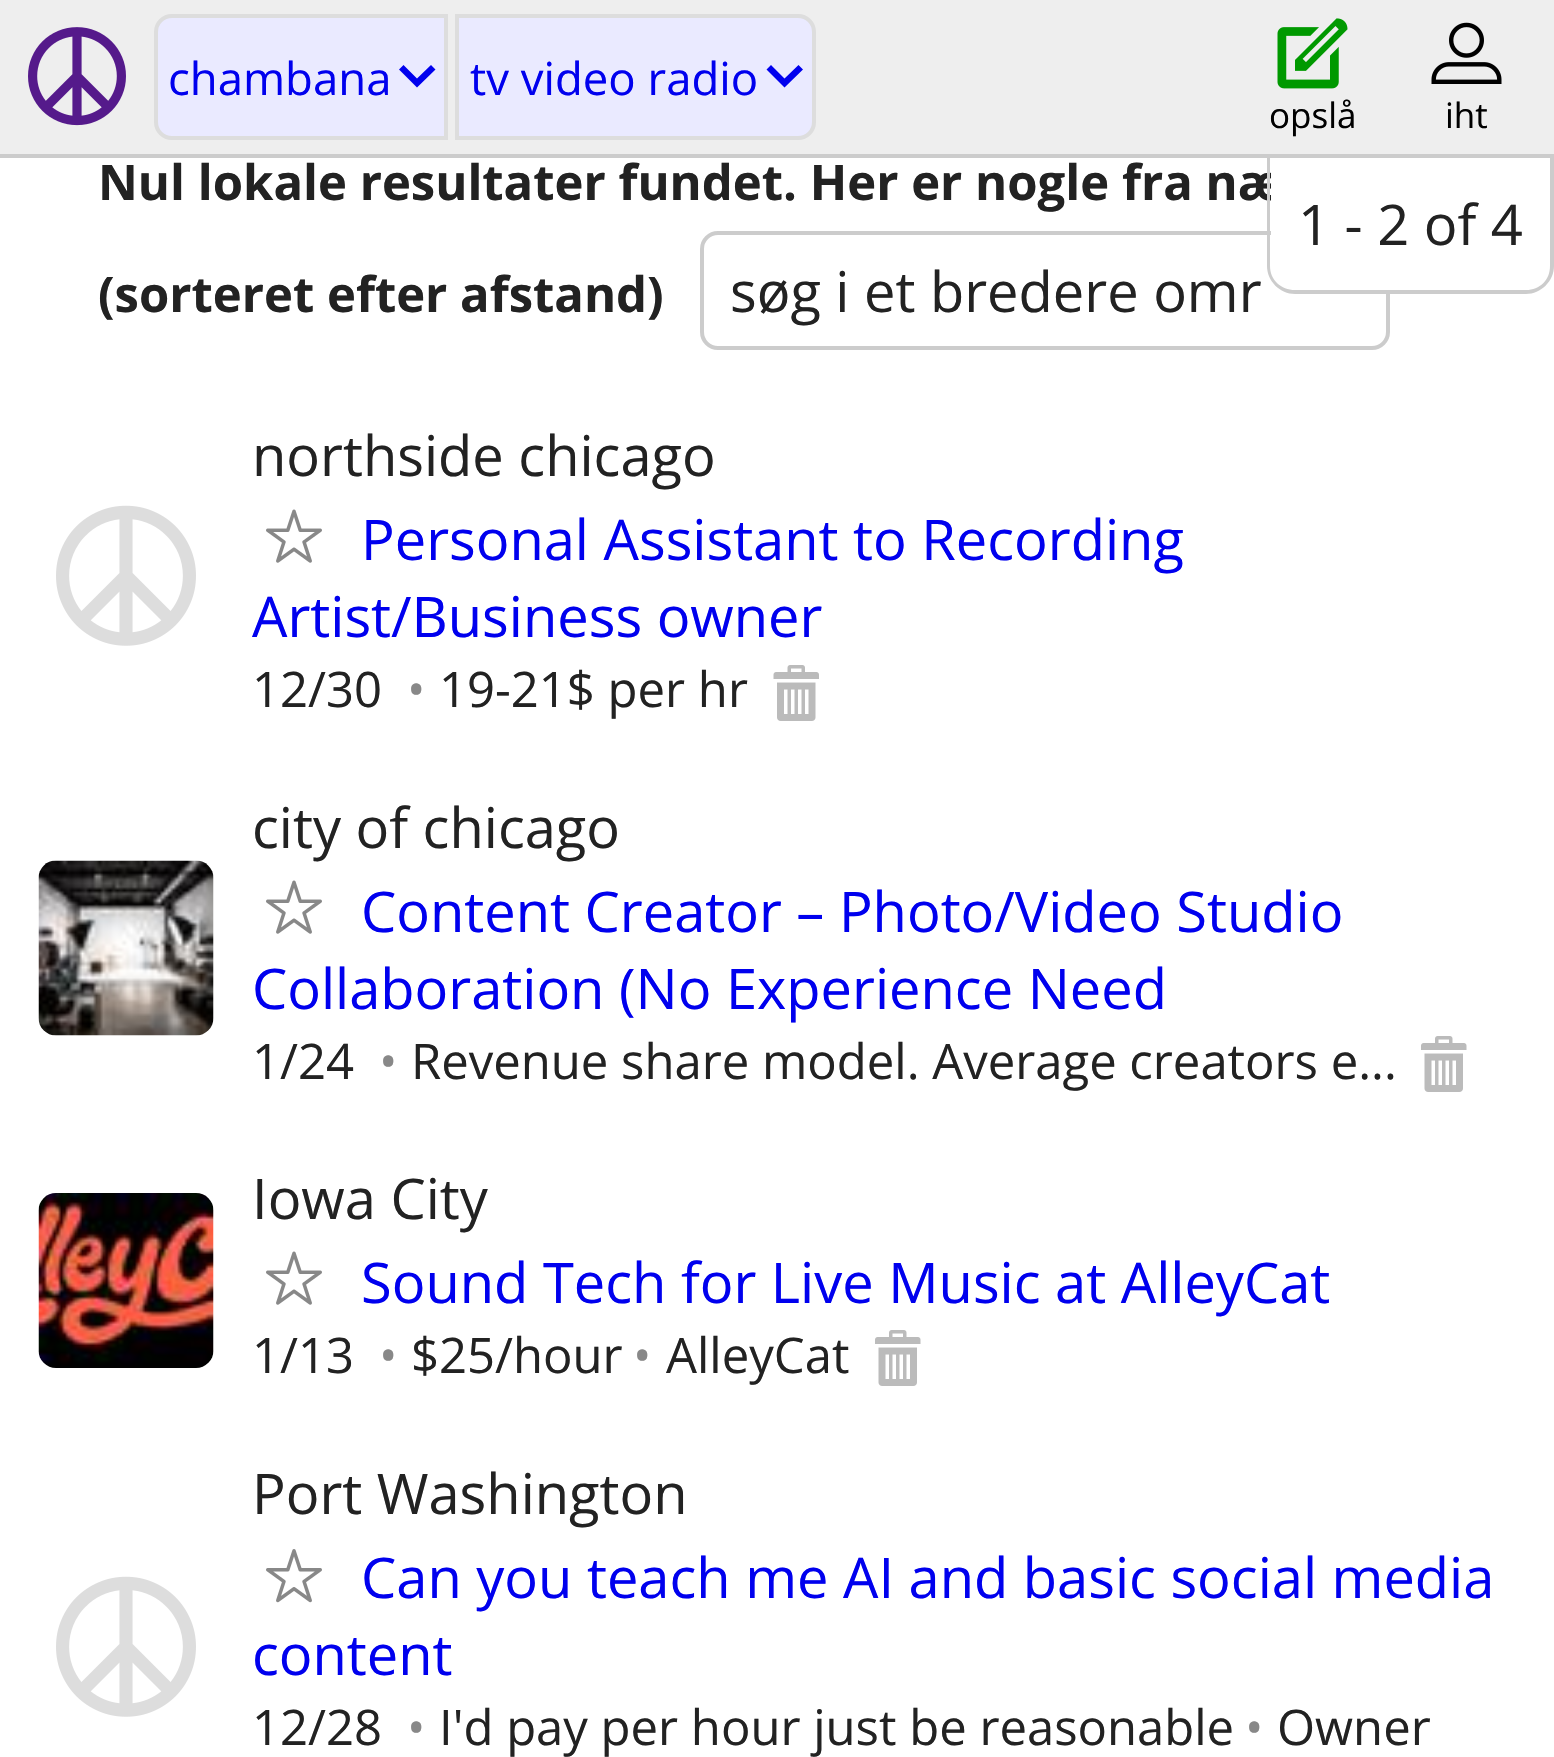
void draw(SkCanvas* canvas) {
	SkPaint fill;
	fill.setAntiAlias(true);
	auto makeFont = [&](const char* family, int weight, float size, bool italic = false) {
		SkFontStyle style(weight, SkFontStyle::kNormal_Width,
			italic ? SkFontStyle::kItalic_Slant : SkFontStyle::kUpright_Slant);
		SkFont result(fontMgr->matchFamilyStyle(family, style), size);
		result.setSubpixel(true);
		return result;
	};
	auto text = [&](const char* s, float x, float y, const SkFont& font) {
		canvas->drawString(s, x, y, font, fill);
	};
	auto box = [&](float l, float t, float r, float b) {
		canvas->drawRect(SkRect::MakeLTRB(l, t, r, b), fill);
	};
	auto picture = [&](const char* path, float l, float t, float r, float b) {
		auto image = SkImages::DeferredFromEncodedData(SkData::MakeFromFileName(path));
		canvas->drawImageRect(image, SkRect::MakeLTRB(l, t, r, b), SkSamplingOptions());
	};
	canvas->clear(0xFFFFFFFF);
	fill.setColor(0xFFEEEEEE);
	box(0, 0, 1554, 154);
	fill.setColor(0xFFCCCCCC);
	box(0, 154, 1554, 158);
	picture("image0.png", 28, 27, 126, 126);
	fill.setColor(0xFFEAEAFF);
	canvas->drawPath(SkPathBuilder().moveTo(172, 16).lineTo(446, 16).lineTo(446, 138).lineTo(172, 138).cubicTo(163, 138, 156, 131, 156, 122).lineTo(156, 32).cubicTo(156, 23, 163, 16, 172, 16).close().detach(), fill);
	fill.setStyle(SkPaint::kStroke_Style);
	fill.setStrokeWidth(4);
	fill.setColor(0xFFDDDDDD);
	canvas->drawPath(SkPathBuilder().moveTo(172, 16).lineTo(446, 16).lineTo(446, 138).lineTo(172, 138).cubicTo(163, 138, 156, 131, 156, 122).lineTo(156, 32).cubicTo(156, 23, 163, 16, 172, 16).close().detach(), fill);
	fill.setStyle(SkPaint::kFill_Style);
	fill.setColor(0xFF0000EE);
	canvas->drawPath(SkPathBuilder().moveTo(435.5f, 69.5f).lineTo(431, 65).lineTo(417, 78.5f).lineTo(403.5f, 65).lineTo(399, 69.5f).lineTo(417, 87.5f).close().detach(), fill);
	fill.setColor(0xFFEAEAFF);
	canvas->drawPath(SkPathBuilder().moveTo(457, 16).lineTo(798, 16).cubicTo(807, 16, 814, 23, 814, 32).lineTo(814, 122).cubicTo(814, 131, 807, 138, 798, 138).lineTo(457, 138).close().detach(), fill);
	fill.setStyle(SkPaint::kStroke_Style);
	fill.setColor(0xFFDDDDDD);
	canvas->drawPath(SkPathBuilder().moveTo(457, 16).lineTo(798, 16).cubicTo(807, 16, 814, 23, 814, 32).lineTo(814, 122).cubicTo(814, 131, 807, 138, 798, 138).lineTo(457, 138).close().detach(), fill);
	fill.setStyle(SkPaint::kFill_Style);
	fill.setColor(0xFF0000EE);
	canvas->drawPath(SkPathBuilder().moveTo(803, 69.5f).lineTo(798.5f, 65).lineTo(784.5f, 78.5f).lineTo(771, 65).lineTo(766.5f, 69.5f).lineTo(784.5f, 87.5f).close().detach(), fill);
	picture("image1.png", 1277, 18, 1348, 89);
	picture("image2.png", 1431, 22, 1502, 84);
	fill.setStyle(SkPaint::kStroke_Style);
	fill.setColor(0xFFCCCCCC);
	canvas->drawRoundRect(SkRect::MakeLTRB(702, 233, 1388, 348), 16, 16, fill);
	picture("image3.png", 56, 505, 196, 646);
	picture("image4.png", 266, 509, 322, 563);
	picture("image5.png", 773, 665, 819, 721);
	picture("image6.png", 38, 860, 214, 1036);
	picture("image4.png", 266, 880, 322, 934);
	picture("image7.png", 1421, 1036, 1467, 1092);
	picture("image8.png", 38, 1193, 214, 1368);
	picture("image4.png", 266, 1251, 322, 1305);
	picture("image7.png", 875, 1330, 921, 1386);
	picture("image3.png", 56, 1576, 196, 1717);
	picture("image9.png", 266, 1549, 322, 1603);
	auto font1 = makeFont("Open Sans", 400, 45.5f);
	fill.setStyle(SkPaint::kFill_Style);
	fill.setColor(0xFF0000EE);
	text("chambana", 168, 95, font1);
	text("tv video radio", 470, 95, font1);
	auto font2 = makeFont("Open Sans", 400, 35);
	fill.setColor(0xFF000000);
	text("opslå", 1269, 128, font2);
	text("iht", 1445, 128, font2);
	auto font3 = makeFont("Open Sans", 700, 49);
	fill.setColor(0xFF222222);
	text("Nul lokale resultater fundet. Her er nogle fra næ", 98, 200, font3);
	text("(sorteret efter afstand)", 98, 312, font3);
	auto font4 = makeFont("Open Sans", 400, 56);
	text("søg i et bredere omr", 730, 312, font4);
	text("northside chicago", 252, 476, font4);
	fill.setColor(0xFF0000EE);
	text("Personal Assistant to Recording", 361, 560, font4);
	text("Artist/Business owner", 252, 637, font4);
	auto font5 = makeFont("Open Sans", 400, 49);
	fill.setColor(0xFF222222);
	text("12/30", 252, 707, font5);
	fill.setColor(0xFF888888);
	text("•", 407, 707, font5);
	fill.setColor(0xFF222222);
	text("19-21$ per hr", 439, 707, font5);
	text("city of chicago", 252, 848, font4);
	fill.setColor(0xFF0000EE);
	text("Content Creator – Photo/Video Studio", 361, 932, font4);
	text("Collaboration (No Experience Need", 252, 1009, font4);
	fill.setColor(0xFF222222);
	text("1/24", 252, 1079, font5);
	fill.setColor(0xFF888888);
	text("•", 379, 1079, font5);
	fill.setColor(0xFF222222);
	text("Revenue share model. Average creators e...", 411, 1079, font5);
	text("Iowa City", 252, 1219, font4);
	fill.setColor(0xFF0000EE);
	text("Sound Tech for Live Music at AlleyCat", 361, 1303, font4);
	fill.setColor(0xFF222222);
	text("1/13", 252, 1373, font5);
	fill.setColor(0xFF888888);
	text("•", 379, 1373, font5);
	fill.setColor(0xFF222222);
	text("$25/hour", 411, 1373, font5);
	fill.setColor(0xFF888888);
	text("•", 633, 1373, font5);
	fill.setColor(0xFF222222);
	text("AlleyCat", 666, 1373, font5);
	text("Port Washington", 252, 1514, font4);
	fill.setColor(0xFF0000EE);
	text("Can you teach me AI and basic social media", 361, 1598, font4);
	text("content", 252, 1675, font4);
	fill.setColor(0xFF222222);
	text("12/28", 252, 1745, font5);
	fill.setColor(0xFF888888);
	text("•", 407, 1745, font5);
	fill.setColor(0xFF222222);
	text("I'd pay per hour just be reasonable", 439, 1745, font5);
	fill.setColor(0xFF888888);
	text("•", 1245, 1745, font5);
	fill.setColor(0xFF222222);
	text("Owner", 1277, 1745, font5);
	fill.setColor(0xFFFFFFFF);
	canvas->drawPath(SkPathBuilder().moveTo(1271, 158).lineTo(1551, 158).lineTo(1551, 266).cubicTo(1551, 280, 1540, 291, 1526, 291).lineTo(1296, 291).cubicTo(1282, 291, 1271, 280, 1271, 266).close().detach(), fill);
	fill.setColor(0xFFCCCCCC);
	canvas->drawPath(SkPathBuilder(SkPathFillType::kEvenOdd).moveTo(1267, 158).lineTo(1554, 158).lineTo(1554, 266).cubicTo(1554, 281, 1541, 294, 1526, 294).lineTo(1295, 294).cubicTo(1280, 294, 1267, 281, 1267, 266).close().moveTo(1270, 158).lineTo(1550, 158).lineTo(1550, 266).cubicTo(1550, 280, 1540, 290, 1526, 290).lineTo(1295, 290).cubicTo(1281, 290, 1270, 280, 1270, 266).close().detach(), fill);
	fill.setColor(0xFF222222);
	text("1 - 2 of 4", 1298, 245, font4);
}
